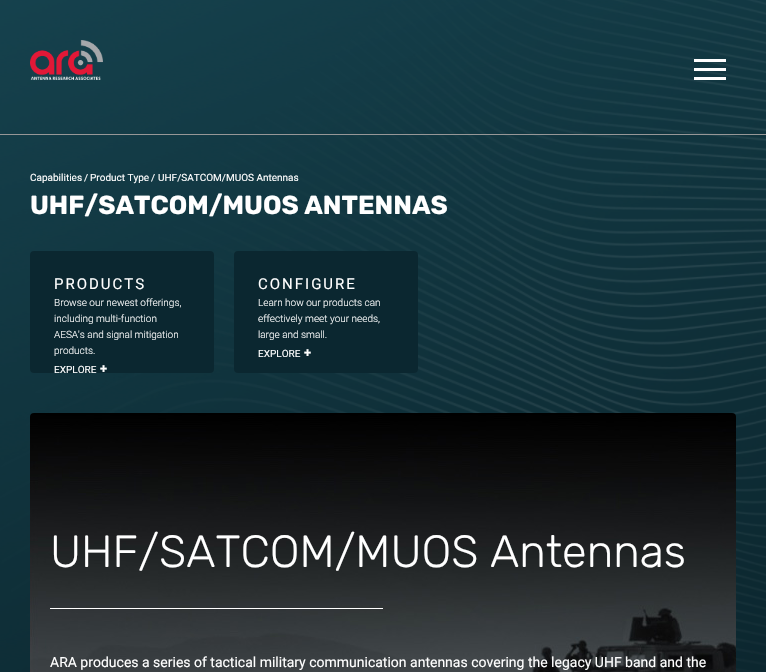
void draw(SkCanvas* canvas) {
	SkPaint fill;
	fill.setAntiAlias(true);
	auto makeFont = [&](const char* family, int weight, float size, bool italic = false) {
		SkFontStyle style(weight, SkFontStyle::kNormal_Width,
			italic ? SkFontStyle::kItalic_Slant : SkFontStyle::kUpright_Slant);
		SkFont result(fontMgr->matchFamilyStyle(family, style), size);
		result.setSubpixel(true);
		return result;
	};
	auto text = [&](const char* s, float x, float y, const SkFont& font) {
		canvas->drawString(s, x, y, font, fill);
	};
	auto spacedText = [&](const char* s, float x, float y, const SkFont& font, const SkPaint& ink, float letter, float word) {
		std::vector<SkGlyphID> glyphs(font.countText(s, strlen(s), SkTextEncoding::kUTF8));
		std::vector<float> xs(glyphs.size());
		font.textToGlyphs(s, strlen(s), SkTextEncoding::kUTF8, glyphs);
		font.getXPos(glyphs, xs, x);
		float extra = 0;
		for (size_t i = 0; i < glyphs.size(); i++) {
			xs[i] += extra;
			extra += letter + word * (glyphs[i] == font.unicharToGlyph(' '));
		}
		canvas->drawTextBlob(SkTextBlob::MakeFromPosHGlyphs(glyphs, xs, y, font), 0, 0, ink);
	};
	auto box = [&](float l, float t, float r, float b) {
		canvas->drawRect(SkRect::MakeLTRB(l, t, r, b), fill);
	};
	auto roundBox = [&](float l, float t, float r, float b, float radius) {
		canvas->drawRoundRect(SkRect::MakeLTRB(l, t, r, b), radius, radius, fill);
	};
	auto picture = [&](const char* path, float l, float t, float r, float b) {
		auto image = SkImages::DeferredFromEncodedData(SkData::MakeFromFileName(path));
		canvas->drawImageRect(image, SkRect::MakeLTRB(l, t, r, b), SkSamplingOptions());
	};
	canvas->clear(0xFFFFFFFF);
	picture("image0.png", 0, 0, 766, 672);
	picture("image1.png", 30, 40, 103, 80);
	fill.setColor(0xFFFFFFFF);
	box(694, 59, 726, 62);
	box(694, 68, 726, 71);
	box(694, 77, 726, 80);
	fill.setColor(0xFF979797);
	box(0, 134, 766, 135);
	fill.setColor(0xFF0B2730);
	roundBox(30, 251, 214, 373, 4);
	roundBox(234, 251, 418, 373, 4);
	picture("image2.png", 30, 413, 736, 672);
	fill.setColor(0xFFFFFFFF);
	box(50, 608, 383, 609);
	auto font1 = makeFont("Roboto", 400, 10);
	text("Capabilities", 30, 181, font1);
	text("/", 84, 181, font1);
	text("Product Type", 90, 181, font1);
	text("/", 151, 181, font1);
	text("UHF/SATCOM/MUOS Antennas", 158, 181, font1);
	auto font2 = makeFont("Rubik", 700, 26);
	text("UHF/SATCOM/MUOS ANTENNAS", 30, 214, font2);
	auto font3 = makeFont("Roboto", 400, 15);
	spacedText("PRODUCTS", 54, 289, font3, fill, 2, 0);
	auto font4 = makeFont("Roboto", 300, 10);
	text("Browse our newest offerings,", 54, 306, font4);
	text("including multi-function", 54, 322, font4);
	text("AESA's and signal mitigation", 54, 338, font4);
	text("products.", 54, 354, font4);
	text("EXPLORE", 54, 373, font1);
	auto font5 = makeFont("Roboto", 700, 13);
	text("+", 100, 373, font5);
	spacedText("CONFIGURE", 258, 289, font3, fill, 2, 0);
	text("Learn how our products can", 258, 306, font4);
	text("effectively meet your needs,", 258, 322, font4);
	text("large and small.", 258, 338, font4);
	text("EXPLORE", 258, 357, font1);
	text("+", 304, 357, font5);
	auto font6 = makeFont("Rubik", 300, 45);
	text("UHF/SATCOM/MUOS Antennas", 50, 567, font6);
	auto font7 = makeFont("Roboto", 400, 14);
	text("ARA produces a series of tactical military communication antennas covering the legacy UHF band and the", 50, 667, font7);
}
